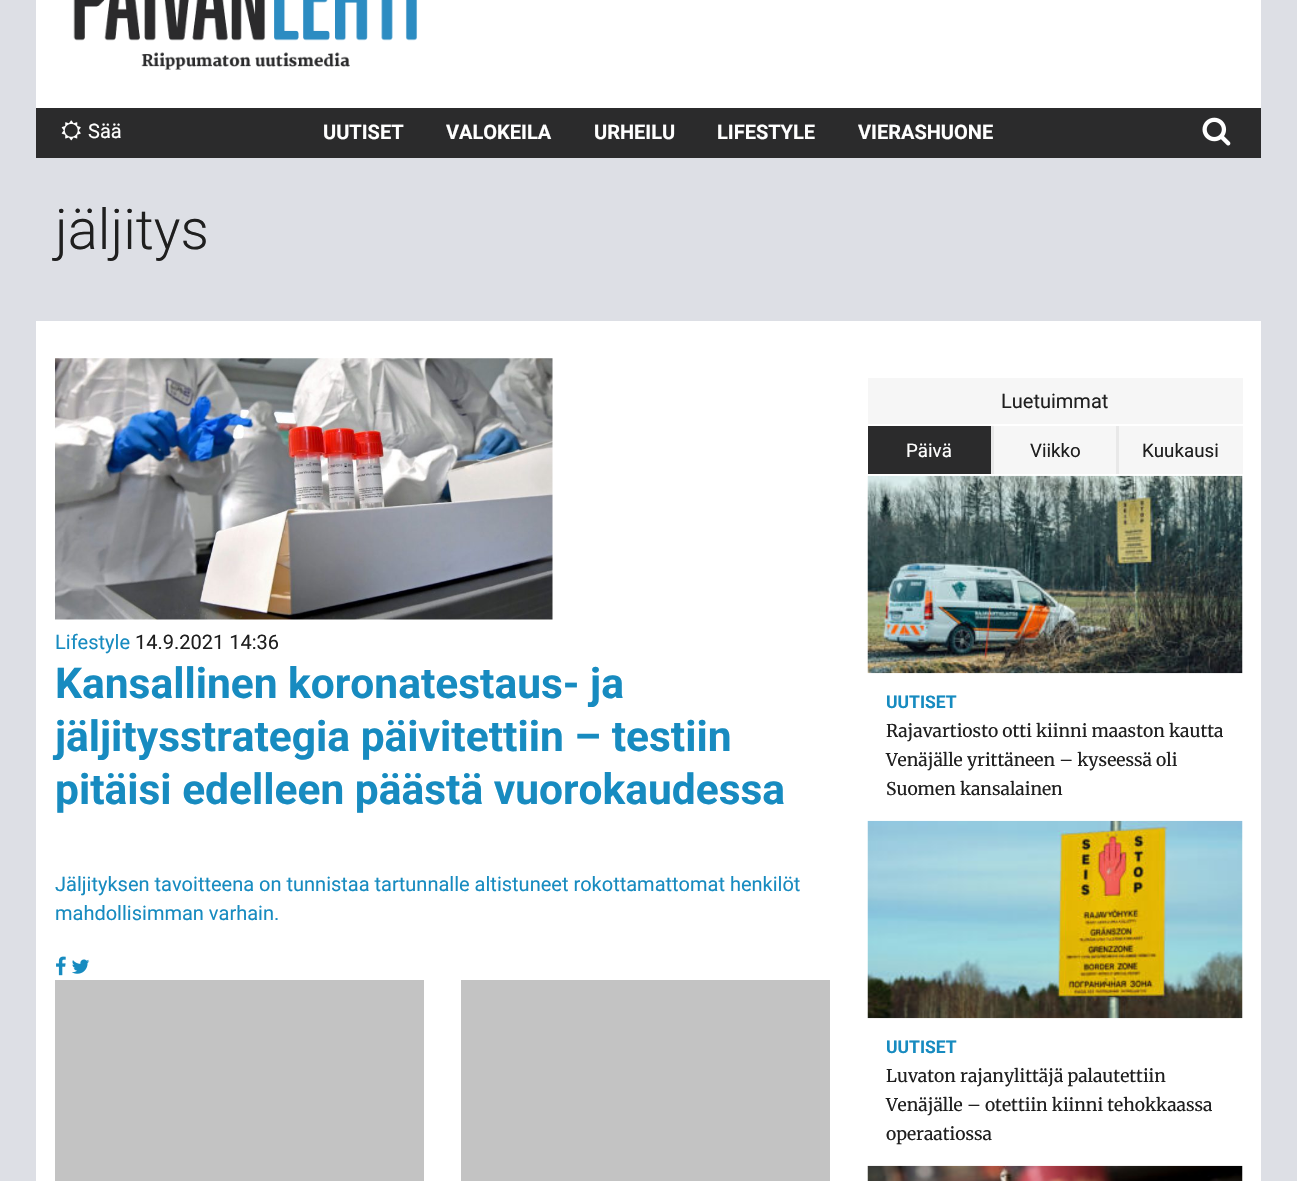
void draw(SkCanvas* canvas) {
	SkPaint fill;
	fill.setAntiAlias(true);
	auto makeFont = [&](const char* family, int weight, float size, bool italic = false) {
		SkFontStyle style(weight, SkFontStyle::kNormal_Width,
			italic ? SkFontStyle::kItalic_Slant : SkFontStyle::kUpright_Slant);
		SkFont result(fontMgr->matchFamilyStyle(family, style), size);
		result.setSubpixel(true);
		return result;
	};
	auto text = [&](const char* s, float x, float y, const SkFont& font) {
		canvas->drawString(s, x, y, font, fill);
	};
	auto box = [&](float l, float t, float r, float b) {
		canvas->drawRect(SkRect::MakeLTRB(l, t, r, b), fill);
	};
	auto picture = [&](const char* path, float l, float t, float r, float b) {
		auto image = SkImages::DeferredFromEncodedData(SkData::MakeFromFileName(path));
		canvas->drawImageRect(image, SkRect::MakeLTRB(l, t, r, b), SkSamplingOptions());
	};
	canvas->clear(0xFFDDDFE5);
	fill.setColor(0xFFFFFFFF);
	box(36, 0, 1261, 108);
	picture("image0.png", 73, 0, 418, 70);
	fill.setColor(0xFF2B2B2C);
	box(36, 108, 1261, 158);
	picture("image1.png", 61, 120, 81, 141);
	picture("image2.png", 1202, 117, 1231, 146);
	fill.setColor(0xFFFFFFFF);
	box(36, 321, 1261, 1181);
	picture("image3.png", 55, 358, 553, 620);
	picture("image4.png", 56, 956, 66, 976);
	picture("image5.png", 72, 959, 90, 974);
	fill.setColor(0xFFC3C3C3);
	box(55, 980, 424, 1181);
	box(461, 980, 830, 1181);
	fill.setColor(0xFFF6F6F6);
	box(868, 378, 1243, 424);
	fill.setColor(0xFFE8E8E8);
	box(991, 426, 1119, 474);
	fill.setColor(0xFF2B2B2C);
	box(868, 426, 991, 474);
	fill.setColor(0xFFF6F6F6);
	box(994, 426, 1116, 474);
	box(1119, 426, 1243, 474);
	picture("image6.png", 867, 475, 1243, 674);
	picture("image7.png", 867, 820, 1243, 1019);
	picture("image8.png", 867, 1165, 1243, 1181);
	auto font1 = makeFont("Roboto", 400, 20);
	fill.setColor(0xFFFFFFFF);
	text("Sää", 88, 138, font1);
	auto font2 = makeFont("Roboto", 700, 20);
	text("UUTISET", 323, 139, font2);
	text("VALOKEILA", 446, 139, font2);
	text("URHEILU", 594, 139, font2);
	text("LIFESTYLE", 717, 139, font2);
	text("VIERASHUONE", 858, 139, font2);
	auto font3 = makeFont("Roboto", 300, 56);
	fill.setColor(0xFF1F1F1F);
	text("jäljitys", 55, 249, font3);
	fill.setColor(0xFF178BC0);
	text("Lifestyle", 55, 649, font1);
	fill.setColor(0xFF1F1F1F);
	text("14.9.2021 14:36", 135, 649, font1);
	auto font4 = makeFont("Roboto", 700, 42.5f);
	fill.setColor(0xFF178BC0);
	text("Kansallinen koronatestaus- ja", 55, 698, font4);
	text("jäljitysstrategia päivitettiin – testiin", 55, 751, font4);
	text("pitäisi edelleen päästä vuorokaudessa", 55, 804, font4);
	text("Jäljityksen tavoitteena on tunnistaa tartunnalle altistuneet rokottamattomat henkilöt", 55, 891, font1);
	text("mahdollisimman varhain.", 55, 920, font1);
	fill.setColor(0xFF1F1F1F);
	text("Luetuimmat", 1001, 408, font1);
	auto font5 = makeFont("Roboto", 400, 18.75f);
	fill.setColor(0xFFFFFFFF);
	text("Päivä", 906, 457, font5);
	fill.setColor(0xFF1F1F1F);
	text("Viikko", 1030, 457, font5);
	text("Kuukausi", 1142, 457, font5);
	auto font6 = makeFont("Roboto", 700, 17.5f);
	fill.setColor(0xFF178BC0);
	text("UUTISET", 886, 708, font6);
	auto font7 = makeFont("Merriweather", 400, 17.5f);
	fill.setColor(0xFF1F1F1F);
	text("Rajavartiosto otti kiinni maaston kautta", 886, 737, font7);
	text("Venäjälle yrittäneen – kyseessä oli", 886, 766, font7);
	text("Suomen kansalainen", 886, 795, font7);
	fill.setColor(0xFF178BC0);
	text("UUTISET", 886, 1053, font6);
	fill.setColor(0xFF1F1F1F);
	text("Luvaton rajanylittäjä palautettiin", 886, 1082, font7);
	text("Venäjälle – otettiin kiinni tehokkaassa", 886, 1111, font7);
	text("operaatiossa", 886, 1140, font7);
}
